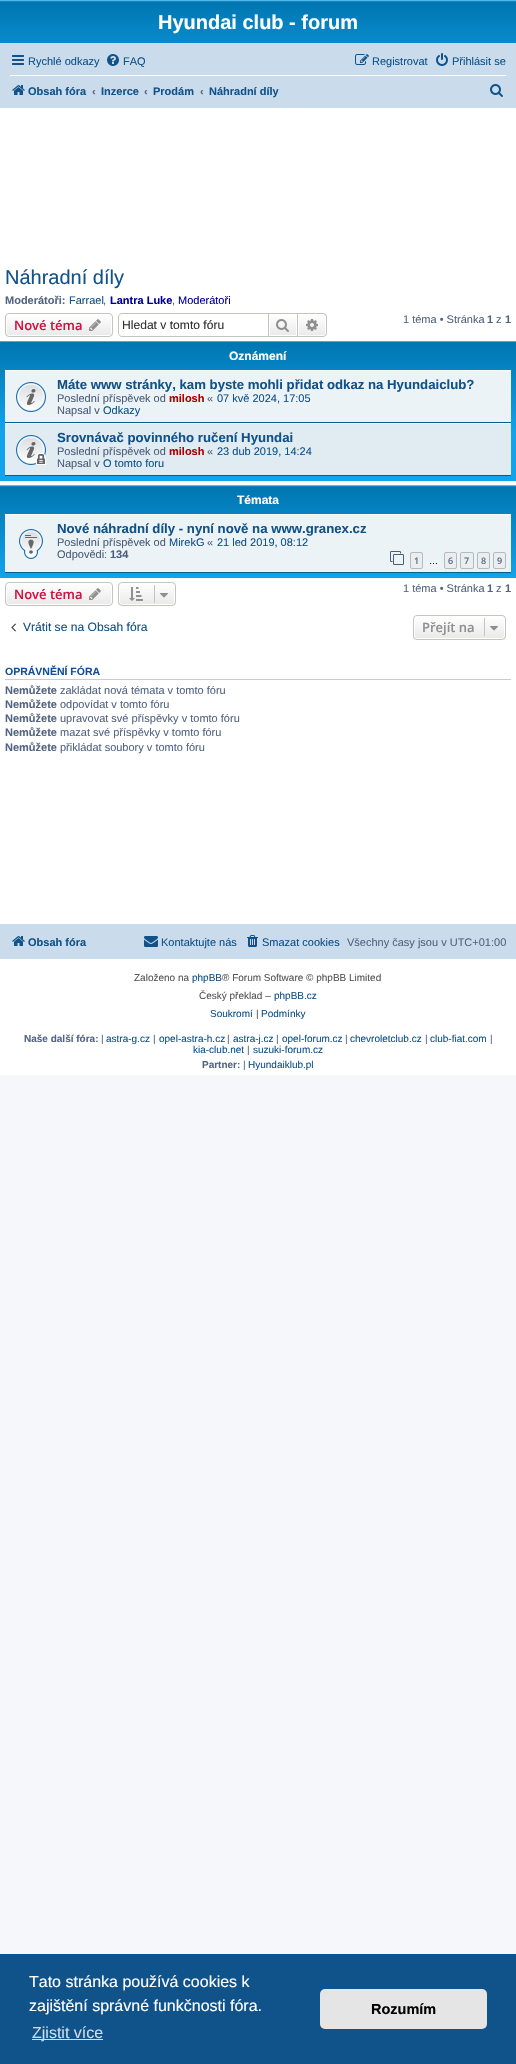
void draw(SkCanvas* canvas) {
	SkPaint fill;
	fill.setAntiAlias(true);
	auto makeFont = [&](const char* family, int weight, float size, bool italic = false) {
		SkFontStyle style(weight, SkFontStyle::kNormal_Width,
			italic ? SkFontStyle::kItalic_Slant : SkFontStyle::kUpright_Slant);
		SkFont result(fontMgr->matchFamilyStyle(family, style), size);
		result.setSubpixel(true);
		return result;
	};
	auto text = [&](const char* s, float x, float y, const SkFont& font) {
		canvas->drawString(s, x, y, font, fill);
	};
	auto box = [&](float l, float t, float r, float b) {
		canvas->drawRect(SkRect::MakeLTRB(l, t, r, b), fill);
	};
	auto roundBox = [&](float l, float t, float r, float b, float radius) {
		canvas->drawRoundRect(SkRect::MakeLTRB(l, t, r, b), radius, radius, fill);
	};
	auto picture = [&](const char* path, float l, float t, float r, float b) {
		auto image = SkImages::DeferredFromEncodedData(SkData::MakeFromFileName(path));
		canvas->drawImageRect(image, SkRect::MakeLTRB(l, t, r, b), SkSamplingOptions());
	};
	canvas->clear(0xFFF5F7FA);
	fill.setColor(0xFFFFFFFF);
	box(0, 108, 516, 1075);
	{
		const SkColor colors[] = {0xFF6ACEFF, 0xFF0076B1, 0xFF12A3EB};
		const float stops[] = {0, 0.02f, 1};
		const SkPoint ends[] = {{258, 0}, {258, 92}};
		fill.setShader(SkGradientShader::MakeLinear(ends, colors, stops, 3, SkTileMode::kClamp));
		fill.setAlpha(255);
	}
	box(0, 0, 516, 43);
	fill.setShader(nullptr);
	fill.setColor(0xFFCADCEB);
	box(0, 43, 516, 108);
	picture("image0.png", 12, 55, 24, 65);
	picture("image1.png", 107, 54, 119, 66);
	picture("image2.png", 355, 54, 369, 65);
	picture("image3.png", 436, 53, 448, 66);
	fill.setColor(0xFFFFFFFF);
	box(10, 75, 506, 76);
	picture("image4.png", 12, 85, 25, 95);
	picture("image5.png", 490, 84, 503, 97);
	canvas->save();
	canvas->clipPath(SkPathBuilder().moveTo(9, 313).lineTo(109, 313).cubicTo(111, 313, 113, 315, 113, 317).lineTo(113, 333).cubicTo(113, 335, 111, 337, 109, 337).lineTo(9, 337).cubicTo(7, 337, 5, 335, 5, 333).lineTo(5, 317).cubicTo(5, 315, 7, 313, 9, 313).close().detach(), true);
	{
		const SkColor colors[] = {0xFFFFFFFF, 0xFFE9E9E9};
		const float stops[] = {0, 1};
		const SkPoint ends[] = {{59, 314}, {59, 336}};
		fill.setShader(SkGradientShader::MakeLinear(ends, colors, stops, 2, SkTileMode::kClamp));
		fill.setAlpha(255);
	}
	box(5, 314, 113, 336);
	canvas->restore();
	fill.setStyle(SkPaint::kStroke_Style);
	fill.setStrokeWidth(1);
	fill.setShader(nullptr);
	fill.setColor(0xFFFFFFFF);
	canvas->drawRoundRect(SkRect::MakeLTRB(6.5f, 314.5f, 111.5f, 335.5f), 2.5f, 2.5f, fill);
	fill.setColor(0xFFC7C3BF);
	canvas->drawRoundRect(SkRect::MakeLTRB(5.5f, 313.5f, 112.5f, 336.5f), 3.5f, 3.5f, fill);
	picture("image6.png", 89, 319, 101, 331);
	fill.setStyle(SkPaint::kFill_Style);
	canvas->drawPath(SkPathBuilder(SkPathFillType::kEvenOdd).moveTo(122, 313).lineTo(268, 313).lineTo(268, 337).lineTo(122, 337).cubicTo(120, 337, 118, 335, 118, 333).lineTo(118, 317).cubicTo(118, 315, 120, 313, 122, 313).close().moveTo(122, 314).lineTo(268, 314).lineTo(268, 336).lineTo(122, 336).cubicTo(120, 336, 119, 335, 119, 333).lineTo(119, 317).cubicTo(119, 315, 120, 314, 122, 314).close().detach(), fill);
	{
		const SkColor colors[] = {0xFFFFFFFF, 0xFFE9E9E9};
		const float stops[] = {0, 1};
		const SkPoint ends[] = {{283, 314}, {283, 336}};
		fill.setShader(SkGradientShader::MakeLinear(ends, colors, stops, 2, SkTileMode::kClamp));
		fill.setAlpha(255);
	}
	box(270, 317, 296, 335);
	fill.setStyle(SkPaint::kStroke_Style);
	fill.setShader(nullptr);
	fill.setColor(0xFFC7C3BF);
	canvas->drawRect(SkRect::MakeLTRB(268.5f, 313.5f, 297.5f, 336.5f), fill);
	picture("image7.png", 276, 319, 289, 332);
	fill.setStyle(SkPaint::kFill_Style);
	{
		const SkColor colors[] = {0xFFFFFFFF, 0xFFE9E9E9};
		const float stops[] = {0, 1};
		const SkPoint ends[] = {{312, 314}, {312, 336}};
		fill.setShader(SkGradientShader::MakeLinear(ends, colors, stops, 2, SkTileMode::kClamp));
		fill.setAlpha(255);
	}
	canvas->drawPath(SkPathBuilder().moveTo(298.5f, 314.5f).lineTo(323, 314.5f).cubicTo(324.5f, 314.5f, 325.5f, 315.5f, 325.5f, 317).lineTo(325.5f, 333).cubicTo(325.5f, 334.5f, 324.5f, 335.5f, 323, 335.5f).lineTo(298.5f, 335.5f).close().detach(), fill);
	fill.setStyle(SkPaint::kStroke_Style);
	fill.setShader(nullptr);
	fill.setColor(0xFFFFFFFF);
	canvas->drawPath(SkPathBuilder().moveTo(298.5f, 314.5f).lineTo(323, 314.5f).cubicTo(324.5f, 314.5f, 325.5f, 315.5f, 325.5f, 317).lineTo(325.5f, 333).cubicTo(325.5f, 334.5f, 324.5f, 335.5f, 323, 335.5f).lineTo(298.5f, 335.5f).close().detach(), fill);
	fill.setStyle(SkPaint::kFill_Style);
	fill.setColor(0xFFC7C3BF);
	canvas->drawPath(SkPathBuilder(SkPathFillType::kEvenOdd).moveTo(298, 313).lineTo(323, 313).cubicTo(325, 313, 327, 315, 327, 317).lineTo(327, 333).cubicTo(327, 335, 325, 337, 323, 337).lineTo(298, 337).close().moveTo(298, 314).lineTo(323, 314).cubicTo(324.5f, 314, 326, 315.5f, 326, 317).lineTo(326, 333).cubicTo(326, 334.5f, 324.5f, 336, 323, 336).lineTo(298, 336).close().detach(), fill);
	picture("image8.png", 306, 319, 318, 331);
	{
		const SkColor colors[] = {0xFF6ACEFF, 0xFF0076B1, 0xFF12A3EB, 0xFF12A3EB};
		const float stops[] = {0, 0.01f, 0.66f, 1};
		const SkPoint ends[] = {{258, 341}, {258, 481}};
		fill.setShader(SkGradientShader::MakeLinear(ends, colors, stops, 4, SkTileMode::kClamp));
		fill.setAlpha(255);
	}
	box(0, 341, 516, 481);
	fill.setShader(nullptr);
	fill.setColor(0xFFECF3F7);
	box(5, 371, 511, 422);
	fill.setColor(0xFFFFFFFF);
	box(5, 370, 511, 371);
	fill.setColor(0xFF00608F);
	box(5, 422, 511, 423);
	picture("image9.png", 16, 382, 46, 412);
	fill.setColor(0xFFE1EBF2);
	box(5, 424, 511, 475);
	fill.setColor(0xFFFFFFFF);
	box(5, 423, 511, 424);
	fill.setColor(0xFF00608F);
	box(5, 475, 511, 476);
	picture("image10.png", 16, 435, 46, 465);
	{
		const SkColor colors[] = {0xFF6ACEFF, 0xFF0076B1, 0xFF12A3EB, 0xFF12A3EB};
		const float stops[] = {0, 0.02f, 0.99f, 1};
		const SkPoint ends[] = {{258, 485}, {258, 578}};
		fill.setShader(SkGradientShader::MakeLinear(ends, colors, stops, 4, SkTileMode::kClamp));
		fill.setAlpha(255);
	}
	box(0, 485, 516, 578);
	fill.setShader(nullptr);
	fill.setColor(0xFFECF3F7);
	box(5, 515, 511, 572);
	fill.setColor(0xFFFFFFFF);
	box(5, 514, 511, 515);
	fill.setColor(0xFF00608F);
	box(5, 572, 511, 573);
	picture("image11.png", 19, 529, 43, 559);
	picture("image12.png", 390, 551, 404, 565);
	fill.setColor(0xFFECEDEE);
	canvas->drawRoundRect(SkRect::MakeLTRB(410.5f, 552.5f, 422.5f, 568.5f), 1.5f, 1.5f, fill);
	fill.setStyle(SkPaint::kStroke_Style);
	fill.setColor(0xFFB4BAC0);
	canvas->drawRoundRect(SkRect::MakeLTRB(410.5f, 552.5f, 422.5f, 568.5f), 1.5f, 1.5f, fill);
	fill.setStyle(SkPaint::kFill_Style);
	fill.setColor(0xFFECEDEE);
	canvas->drawRoundRect(SkRect::MakeLTRB(444.5f, 552.5f, 456.5f, 568.5f), 1.5f, 1.5f, fill);
	fill.setStyle(SkPaint::kStroke_Style);
	fill.setColor(0xFFB4BAC0);
	canvas->drawRoundRect(SkRect::MakeLTRB(444.5f, 552.5f, 456.5f, 568.5f), 1.5f, 1.5f, fill);
	fill.setStyle(SkPaint::kFill_Style);
	fill.setColor(0xFFECEDEE);
	canvas->drawRoundRect(SkRect::MakeLTRB(460.5f, 552.5f, 473.5f, 568.5f), 1.5f, 1.5f, fill);
	fill.setStyle(SkPaint::kStroke_Style);
	fill.setColor(0xFFB4BAC0);
	canvas->drawRoundRect(SkRect::MakeLTRB(460.5f, 552.5f, 473.5f, 568.5f), 1.5f, 1.5f, fill);
	fill.setStyle(SkPaint::kFill_Style);
	fill.setColor(0xFFECEDEE);
	canvas->drawRoundRect(SkRect::MakeLTRB(477.5f, 552.5f, 489.5f, 568.5f), 1.5f, 1.5f, fill);
	fill.setStyle(SkPaint::kStroke_Style);
	fill.setColor(0xFFB4BAC0);
	canvas->drawRoundRect(SkRect::MakeLTRB(477.5f, 552.5f, 489.5f, 568.5f), 1.5f, 1.5f, fill);
	fill.setStyle(SkPaint::kFill_Style);
	fill.setColor(0xFFECEDEE);
	canvas->drawRoundRect(SkRect::MakeLTRB(493.5f, 552.5f, 505.5f, 568.5f), 1.5f, 1.5f, fill);
	fill.setStyle(SkPaint::kStroke_Style);
	fill.setColor(0xFFB4BAC0);
	canvas->drawRoundRect(SkRect::MakeLTRB(493.5f, 552.5f, 505.5f, 568.5f), 1.5f, 1.5f, fill);
	canvas->save();
	canvas->clipPath(SkPathBuilder().moveTo(122, 582).lineTo(172, 582).cubicTo(174, 582, 176, 584, 176, 586).lineTo(176, 602).cubicTo(176, 604, 174, 606, 172, 606).lineTo(122, 606).cubicTo(120, 606, 118, 604, 118, 602).lineTo(118, 586).cubicTo(118, 584, 120, 582, 122, 582).close().detach(), true);
	fill.setStyle(SkPaint::kFill_Style);
	{
		const SkColor colors[] = {0xFFFFFFFF, 0xFFE9E9E9};
		const float stops[] = {0, 1};
		const SkPoint ends[] = {{147, 583}, {147, 605}};
		fill.setShader(SkGradientShader::MakeLinear(ends, colors, stops, 2, SkTileMode::kClamp));
		fill.setAlpha(255);
	}
	box(118, 583, 176, 605);
	canvas->restore();
	fill.setStyle(SkPaint::kStroke_Style);
	fill.setShader(nullptr);
	fill.setColor(0xFFFFFFFF);
	canvas->drawRoundRect(SkRect::MakeLTRB(119.5f, 583.5f, 174.5f, 604.5f), 2.5f, 2.5f, fill);
	fill.setColor(0xFFC7C3BF);
	canvas->drawRoundRect(SkRect::MakeLTRB(118.5f, 582.5f, 175.5f, 605.5f), 3.5f, 3.5f, fill);
	picture("image13.png", 129, 587, 143, 601);
	fill.setStyle(SkPaint::kFill_Style);
	box(154, 585, 155, 603);
	picture("image14.png", 160, 593, 168, 598);
	canvas->save();
	canvas->clipPath(SkPathBuilder().moveTo(9, 582).lineTo(109, 582).cubicTo(111, 582, 113, 584, 113, 586).lineTo(113, 602).cubicTo(113, 604, 111, 606, 109, 606).lineTo(9, 606).cubicTo(7, 606, 5, 604, 5, 602).lineTo(5, 586).cubicTo(5, 584, 7, 582, 9, 582).close().detach(), true);
	{
		const SkColor colors[] = {0xFFFFFFFF, 0xFFE9E9E9};
		const float stops[] = {0, 1};
		const SkPoint ends[] = {{59, 583}, {59, 605}};
		fill.setShader(SkGradientShader::MakeLinear(ends, colors, stops, 2, SkTileMode::kClamp));
		fill.setAlpha(255);
	}
	box(5, 583, 113, 605);
	canvas->restore();
	fill.setStyle(SkPaint::kStroke_Style);
	fill.setShader(nullptr);
	fill.setColor(0xFFFFFFFF);
	canvas->drawRoundRect(SkRect::MakeLTRB(6.5f, 583.5f, 111.5f, 604.5f), 2.5f, 2.5f, fill);
	fill.setColor(0xFFC7C3BF);
	canvas->drawRoundRect(SkRect::MakeLTRB(5.5f, 582.5f, 112.5f, 605.5f), 3.5f, 3.5f, fill);
	picture("image6.png", 89, 588, 101, 600);
	picture("image15.png", 11, 623, 16, 632);
	canvas->save();
	canvas->clipPath(SkPathBuilder().moveTo(417, 615).lineTo(502, 615).cubicTo(504, 615, 506, 617, 506, 619).lineTo(506, 636).cubicTo(506, 638, 504, 640, 502, 640).lineTo(417, 640).cubicTo(415, 640, 413, 638, 413, 636).lineTo(413, 619).cubicTo(413, 617, 415, 615, 417, 615).close().detach(), true);
	fill.setStyle(SkPaint::kFill_Style);
	{
		const SkColor colors[] = {0xFFFFFFFF, 0xFFE9E9E9};
		const float stops[] = {0, 1};
		const SkPoint ends[] = {{460, 616}, {460, 639}};
		fill.setShader(SkGradientShader::MakeLinear(ends, colors, stops, 2, SkTileMode::kClamp));
		fill.setAlpha(255);
	}
	box(413, 616, 506, 639);
	canvas->restore();
	fill.setStyle(SkPaint::kStroke_Style);
	fill.setShader(nullptr);
	fill.setColor(0xFFFFFFFF);
	canvas->drawRoundRect(SkRect::MakeLTRB(414.5f, 616.5f, 504.5f, 638.5f), 2.5f, 2.5f, fill);
	fill.setColor(0xFFC7C3BF);
	canvas->drawRoundRect(SkRect::MakeLTRB(413.5f, 615.5f, 505.5f, 639.5f), 3.5f, 3.5f, fill);
	fill.setStyle(SkPaint::kFill_Style);
	box(484, 618, 485, 636);
	picture("image14.png", 490, 626, 498, 631);
	fill.setColor(0xFFCCCCCC);
	box(5, 679, 511, 680);
	fill.setColor(0xFFCADCEB);
	box(0, 924, 516, 959);
	picture("image4.png", 12, 936, 25, 946);
	picture("image16.png", 144, 936, 158, 947);
	picture("image17.png", 247, 935, 258, 947);
	fill.setColor(0xFF0F538A);
	box(0, 1954, 516, 2064);
	fill.setColor(0xFFCFDDE8);
	box(32, 2039, 103, 2040);
	fill.setColor(0xFFE5E5E5);
	roundBox(320, 1989, 487, 2029, 5);
	auto font1 = makeFont("Liberation Sans", 700, 20);
	fill.setColor(0xFFFFFFFF);
	text("Hyundai club - forum", 158, 29, font1);
	auto font2 = makeFont("Liberation Sans", 400, 11);
	fill.setColor(0xFF105289);
	text("Rychlé odkazy", 28, 65, font2);
	text("FAQ", 123, 65, font2);
	text("Registrovat", 372, 65, font2);
	text("Přihlásit se", 452, 65, font2);
	auto font3 = makeFont("Liberation Sans", 700, 11);
	text("Obsah fóra", 28, 95, font3);
	fill.setColor(0xFF536482);
	text("‹", 92, 95, font3);
	fill.setColor(0xFF105289);
	text("Inzerce", 101, 95, font3);
	fill.setColor(0xFF536482);
	text("‹", 144, 95, font3);
	fill.setColor(0xFF105289);
	text("Prodám", 153, 95, font3);
	fill.setColor(0xFF536482);
	text("‹", 200, 95, font3);
	fill.setColor(0xFF105289);
	text("Náhradní díly", 209, 95, font3);
	auto font4 = makeFont("Liberation Sans", 400, 20);
	text("Náhradní díly", 5, 284, font4);
	fill.setColor(0xFF536482);
	text("Moderátoři:", 5, 304, font3);
	fill.setColor(0xFF105289);
	text("Farrael", 69, 304, font2);
	fill.setColor(0xFF536482);
	text(",", 103, 304, font2);
	fill.setColor(0xFF000099);
	text("Lantra Luke", 110, 304, font3);
	fill.setColor(0xFF536482);
	text(",", 172, 304, font2);
	fill.setColor(0xFF000099);
	text("Moderátoři", 178, 304, font2);
	fill.setColor(0xFF536482);
	text("1 téma • Stránka", 403, 323, font2);
	text("1", 487, 323, font3);
	text("z", 496, 323, font2);
	text("1", 505, 323, font3);
	auto font5 = makeFont("Open Sans", 600, 13);
	fill.setColor(0xFFD31141);
	text("Nové téma", 14, 330, font5);
	auto font6 = makeFont("Liberation Sans", 400, 12.1f);
	fill.setColor(0xFF333333);
	text("Hledat v tomto fóru", 122, 329, font6);
	auto font7 = makeFont("Liberation Sans", 700, 12);
	fill.setColor(0xFFFFFFFF);
	text("Oznámení", 229, 360, font7);
	auto font8 = makeFont("Liberation Sans", 700, 13.2f);
	fill.setColor(0xFF105289);
	text("Máte www stránky, kam byste mohli přidat odkaz na Hyundaiclub?", 57, 389, font8);
	fill.setColor(0xFF4C5D77);
	text("Poslední příspěvek od", 57, 402, font2);
	fill.setColor(0xFFAA0000);
	text("milosh", 169, 402, font3);
	fill.setColor(0xFF4C5D77);
	text("«", 207, 402, font2);
	fill.setColor(0xFF105289);
	text("07 kvě 2024, 17:05", 217, 402, font2);
	fill.setColor(0xFF4C5D77);
	text("Napsal v", 57, 414, font2);
	fill.setColor(0xFF105289);
	text("Odkazy", 103, 414, font2);
	text("Srovnávač povinného ručení Hyundai", 57, 442, font8);
	fill.setColor(0xFF4C5D77);
	text("Poslední příspěvek od", 57, 455, font2);
	fill.setColor(0xFFAA0000);
	text("milosh", 169, 455, font3);
	fill.setColor(0xFF4C5D77);
	text("«", 207, 455, font2);
	fill.setColor(0xFF105289);
	text("23 dub 2019, 14:24", 217, 455, font2);
	fill.setColor(0xFF4C5D77);
	text("Napsal v", 57, 467, font2);
	fill.setColor(0xFF105289);
	text("O tomto foru", 103, 467, font2);
	fill.setColor(0xFFFFFFFF);
	text("Témata", 237, 504, font7);
	fill.setColor(0xFF105289);
	text("Nové náhradní díly - nyní nově na www.granex.cz", 57, 533, font8);
	fill.setColor(0xFF4C5D77);
	text("Poslední příspěvek od", 57, 546, font2);
	fill.setColor(0xFF105289);
	text("MirekG", 169, 546, font2);
	fill.setColor(0xFF4C5D77);
	text("«", 207, 546, font2);
	fill.setColor(0xFF105289);
	text("21 led 2019, 08:12", 217, 546, font2);
	fill.setColor(0xFF4C5D77);
	text("Odpovědi:", 57, 558, font2);
	text("134", 110, 558, font3);
	auto font9 = makeFont("Open Sans", 600, 9);
	fill.setColor(0xFF5C758C);
	text("1", 414, 564, font9);
	auto font10 = makeFont("Liberation Sans", 400, 9);
	fill.setColor(0xFF000000);
	text("…", 429, 564, font10);
	fill.setColor(0xFF5C758C);
	text("6", 448, 564, font9);
	text("7", 464, 564, font9);
	text("8", 481, 564, font9);
	text("9", 497, 564, font9);
	fill.setColor(0xFF536482);
	text("1 téma • Stránka", 403, 592, font2);
	text("1", 487, 592, font3);
	text("z", 496, 592, font2);
	text("1", 505, 592, font3);
	fill.setColor(0xFFD31141);
	text("Nové téma", 14, 599, font5);
	fill.setColor(0xFF105289);
	text("Vrátit se na Obsah fóra", 23, 631, font6);
	fill.setColor(0xFF8F8F8F);
	text("Přejít na", 422, 632, font5);
	auto font11 = makeFont("Liberation Sans", 700, 10.5f);
	fill.setColor(0xFF115098);
	text("OPRÁVNĚNÍ FÓRA", 5, 675, font11);
	fill.setColor(0xFF536482);
	text("Nemůžete", 5, 694, font3);
	text("zakládat nová témata v tomto fóru", 60, 694, font2);
	text("Nemůžete", 5, 708, font3);
	text("odpovídat v tomto fóru", 60, 708, font2);
	text("Nemůžete", 5, 722, font3);
	text("upravovat své příspěvky v tomto fóru", 60, 722, font2);
	text("Nemůžete", 5, 736, font3);
	text("mazat své příspěvky v tomto fóru", 60, 736, font2);
	text("Nemůžete", 5, 751, font3);
	text("přikládat soubory v tomto fóru", 60, 751, font2);
	fill.setColor(0xFF105289);
	text("Obsah fóra", 28, 946, font3);
	text("Kontaktujte nás", 161, 946, font2);
	text("Smazat cookies", 262, 946, font2);
	fill.setColor(0xFF536482);
	text("Všechny časy jsou v UTC+01:00", 347, 946, font2);
	auto font12 = makeFont("Liberation Sans", 400, 10);
	fill.setColor(0xFF555555);
	text("Založeno na", 134, 981, font12);
	fill.setColor(0xFF105289);
	text("phpBB", 192, 981, font12);
	fill.setColor(0xFF555555);
	text("® Forum Software © phpBB Limited", 222, 981, font12);
	text("Český překlad –", 199, 999, font12);
	fill.setColor(0xFF105289);
	text("phpBB.cz", 274, 999, font12);
	text("Soukromí", 210, 1017, font12);
	fill.setColor(0xFF555555);
	text("|", 256, 1017, font12);
	fill.setColor(0xFF105289);
	text("Podmínky", 261, 1017, font12);
	auto font13 = makeFont("Liberation Sans", 700, 10);
	fill.setColor(0xFF536482);
	text("Naše další fóra:", 24, 1042, font13);
	text("|", 101, 1042, font12);
	fill.setColor(0xFF105289);
	text("astra-g.cz", 106, 1042, font12);
	fill.setColor(0xFF536482);
	text("|", 153, 1042, font12);
	fill.setColor(0xFF105289);
	text("opel-astra-h.cz", 159, 1042, font12);
	fill.setColor(0xFF536482);
	text("|", 227, 1042, font12);
	fill.setColor(0xFF105289);
	text("astra-j.cz", 233, 1042, font12);
	fill.setColor(0xFF536482);
	text("|", 276, 1042, font12);
	fill.setColor(0xFF105289);
	text("opel-forum.cz", 282, 1042, font12);
	fill.setColor(0xFF536482);
	text("|", 345, 1042, font12);
	fill.setColor(0xFF105289);
	text("chevroletclub.cz", 350, 1042, font12);
	fill.setColor(0xFF536482);
	text("|", 425, 1042, font12);
	fill.setColor(0xFF105289);
	text("club-fiat.com", 430, 1042, font12);
	fill.setColor(0xFF536482);
	text("|", 490, 1042, font12);
	fill.setColor(0xFF105289);
	text("kia-club.net", 193, 1053, font12);
	fill.setColor(0xFF536482);
	text("|", 247, 1053, font12);
	fill.setColor(0xFF105289);
	text("suzuki-forum.cz", 253, 1053, font12);
	fill.setColor(0xFF536482);
	text("Partner:", 202, 1068, font13);
	text("|", 243, 1068, font12);
	fill.setColor(0xFF105289);
	text("Hyundaiklub.pl", 248, 1068, font12);
	auto font14 = makeFont("Liberation Sans", 400, 16);
	fill.setColor(0xFFFFFFFF);
	text("Tato stránka používá cookies k", 29, 1987, font14);
	text("zajištění správné funkčnosti fóra.", 29, 2011, font14);
	fill.setColor(0xFFCFDDE8);
	text("Zjistit více", 32, 2038, font14);
	auto font15 = makeFont("Liberation Sans", 700, 14.5f);
	fill.setColor(0xFF000000);
	text("Rozumím", 371, 2014, font15);
}
